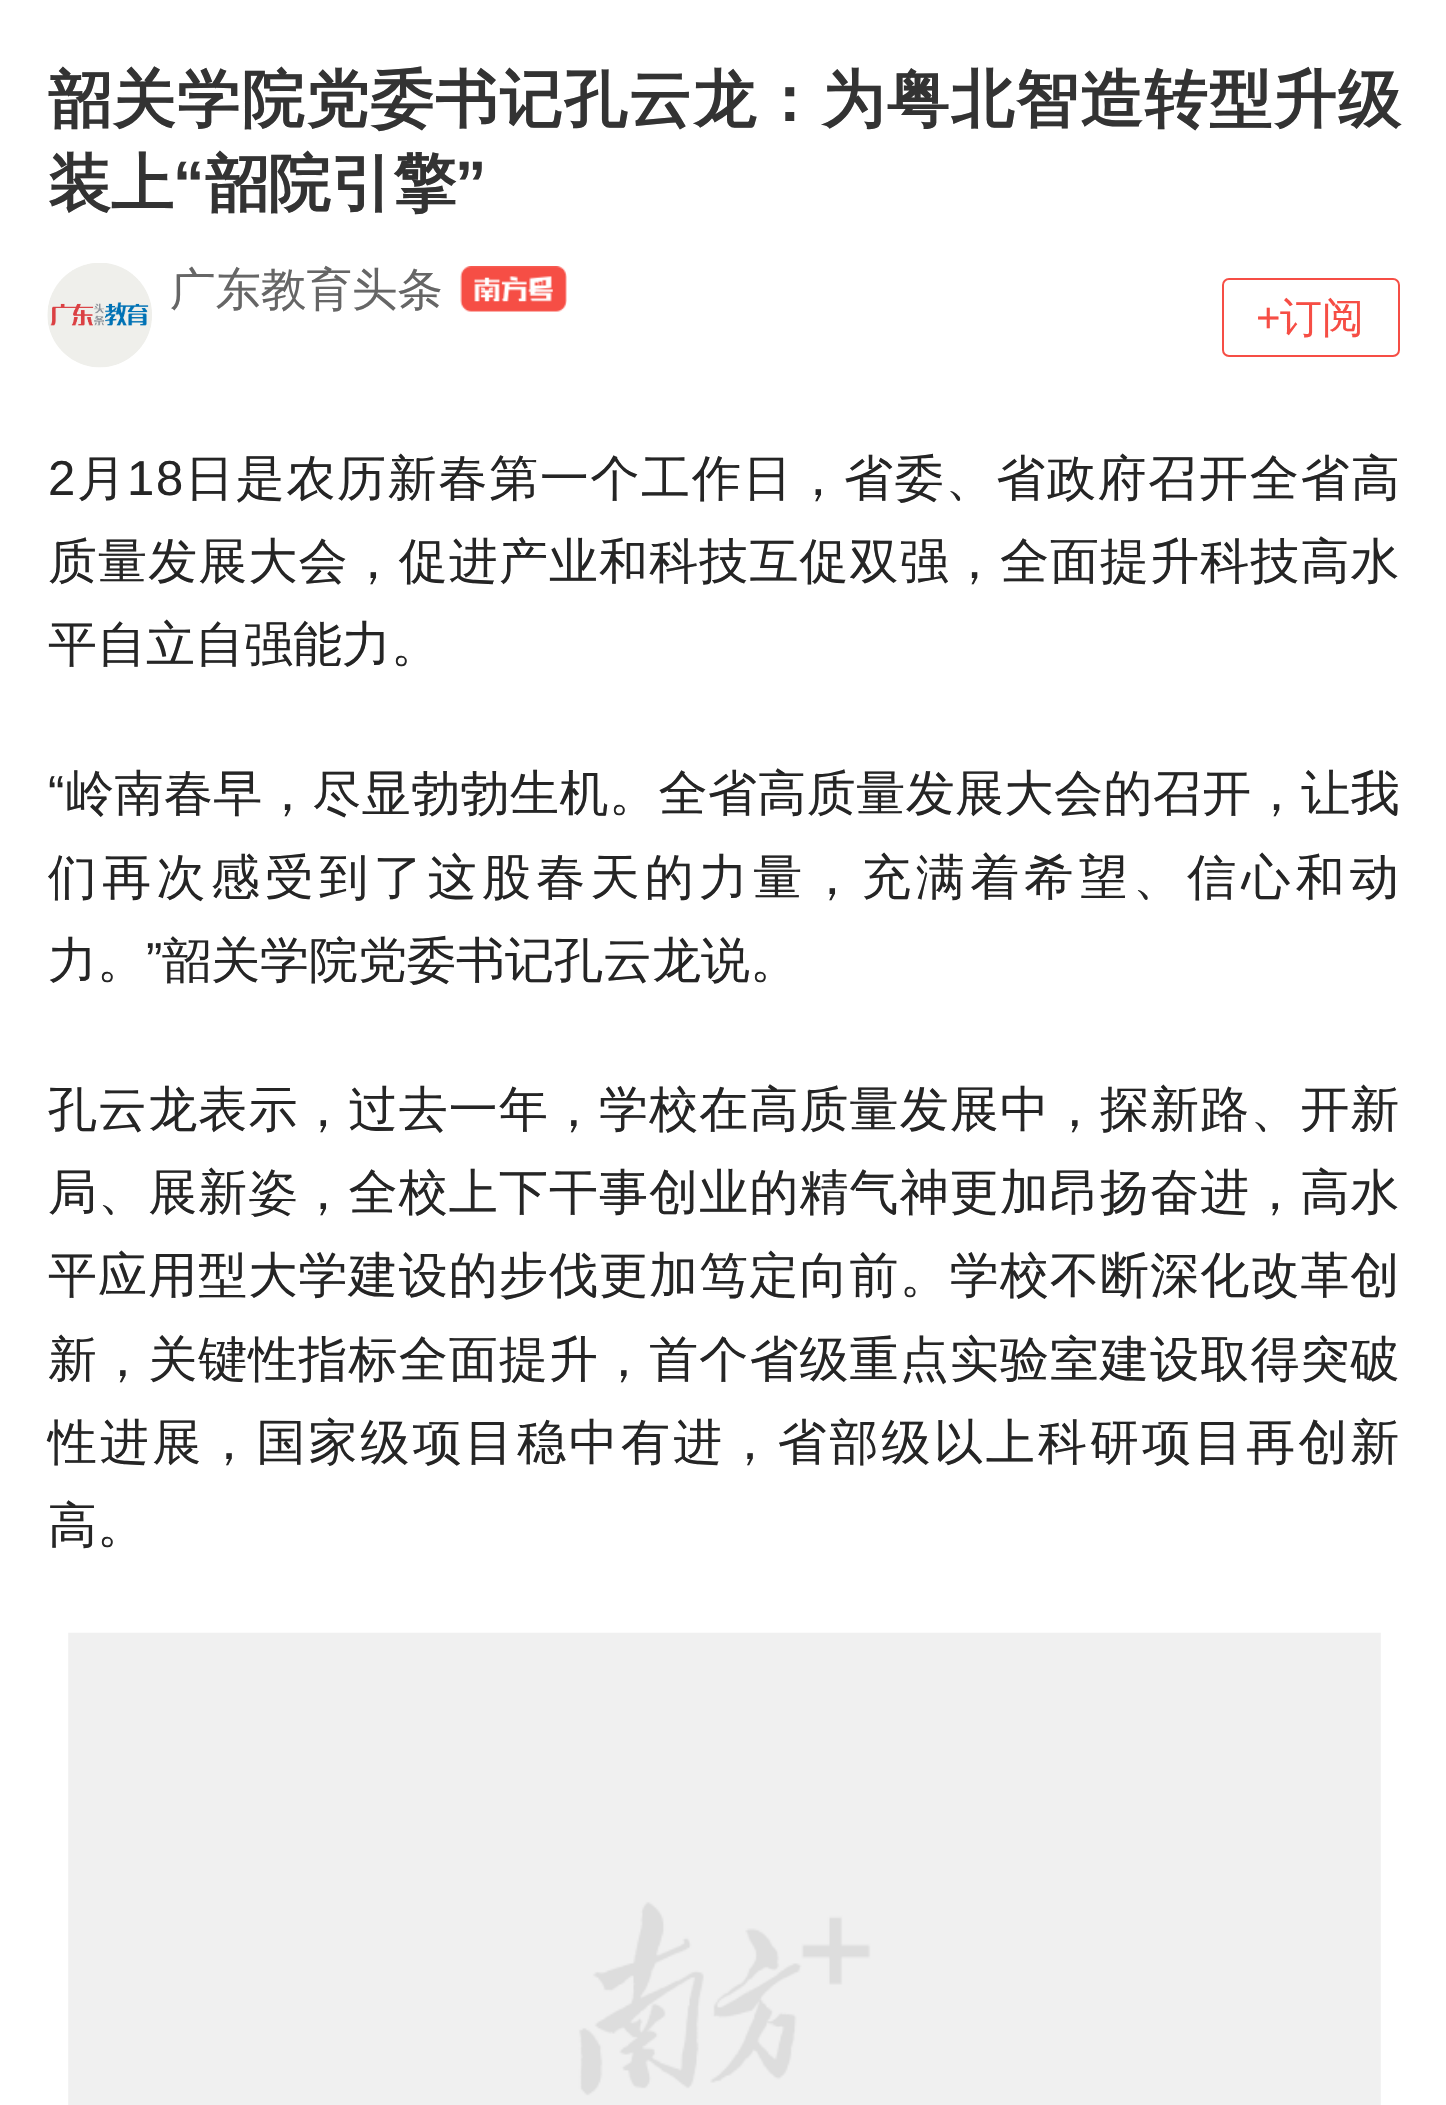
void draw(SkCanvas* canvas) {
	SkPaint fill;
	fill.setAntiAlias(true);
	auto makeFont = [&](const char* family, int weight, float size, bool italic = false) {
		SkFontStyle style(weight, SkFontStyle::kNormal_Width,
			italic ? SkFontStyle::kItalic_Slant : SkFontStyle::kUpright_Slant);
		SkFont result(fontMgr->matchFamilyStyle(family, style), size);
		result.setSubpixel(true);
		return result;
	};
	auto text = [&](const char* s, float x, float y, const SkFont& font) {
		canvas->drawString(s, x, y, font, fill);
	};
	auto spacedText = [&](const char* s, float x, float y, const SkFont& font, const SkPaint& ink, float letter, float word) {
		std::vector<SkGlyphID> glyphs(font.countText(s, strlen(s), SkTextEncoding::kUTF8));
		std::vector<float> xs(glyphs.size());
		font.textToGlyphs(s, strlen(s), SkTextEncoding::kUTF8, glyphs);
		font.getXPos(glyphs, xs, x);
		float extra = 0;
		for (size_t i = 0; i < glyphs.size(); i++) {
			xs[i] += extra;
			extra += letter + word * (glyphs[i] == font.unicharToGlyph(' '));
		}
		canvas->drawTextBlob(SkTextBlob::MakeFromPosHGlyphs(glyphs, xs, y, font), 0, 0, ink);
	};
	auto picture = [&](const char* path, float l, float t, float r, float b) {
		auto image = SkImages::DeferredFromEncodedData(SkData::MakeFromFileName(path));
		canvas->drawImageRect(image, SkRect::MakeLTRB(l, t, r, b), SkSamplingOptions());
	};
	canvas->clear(0xFFFFFFFF);
	picture("image0.png", 47, 263, 152, 368);
	picture("image1.png", 460, 266, 567, 312);
	fill.setStyle(SkPaint::kStroke_Style);
	fill.setStrokeWidth(2);
	fill.setColor(0xFFF64E45);
	canvas->drawRoundRect(SkRect::MakeLTRB(1223, 279, 1399, 356), 6, 6, fill);
	picture("image2.png", 68, 1632, 1381, 2105);
	auto font1 = makeFont("WenQuanYi Zen Hei", 700, 62.75f);
	fill.setStyle(SkPaint::kFill_Style);
	fill.setColor(0xFF333333);
	spacedText("韶关学院党委书记孔云龙：为粤北智造转型升级", 48, 121, font1, fill, 1.75f, 0);
	text("装上", 48, 205, font1);
	auto font2 = makeFont("Liberation Sans", 700, 62.75f);
	text("“", 173, 205, font2);
	text("韶院引擎", 205, 205, font1);
	text("”", 455, 205, font2);
	auto font3 = makeFont("WenQuanYi Zen Hei", 500, 45.5f);
	fill.setColor(0xFF666666);
	text("广东教育头条", 170, 305, font3);
	auto font4 = makeFont("Liberation Sans", 400, 42);
	fill.setColor(0xFFF64E45);
	text("+", 1256, 332, font4);
	auto font5 = makeFont("WenQuanYi Zen Hei", 500, 42);
	text("订阅", 1280, 332, font5);
	auto font6 = makeFont("Liberation Sans", 400, 49);
	fill.setColor(0xFF252525);
	spacedText("2", 48, 495, font6, fill, 1.7f, 0);
	auto font7 = makeFont("WenQuanYi Zen Hei", 500, 49);
	spacedText("月", 77, 495, font7, fill, 1.7f, 0);
	spacedText("18", 127, 495, font6, fill, 1.7f, 0);
	spacedText("日是农历新春第一个工作日，省委、省政府召开全省高", 185, 495, font7, fill, 1.7f, 0);
	spacedText("质量发展大会，促进产业和科技互促双强，全面提升科技高水", 48, 578, font7, fill, 1.1f, 0);
	text("平自立自强能力。", 48, 661, font7);
	spacedText("“", 48, 810, font6, fill, 0.45f, 0);
	spacedText("岭南春早，尽显勃勃生机。全省高质量发展大会的召开，让我", 65, 810, font7, fill, 0.45f, 0);
	spacedText("们再次感受到了这股春天的力量，充满着希望、信心和动", 48, 894, font7, fill, 5.25f, 0);
	text("力。", 48, 977, font7);
	text("”", 146, 977, font6);
	text("韶关学院党委书记孔云龙说。", 162, 977, font7);
	spacedText("孔云龙表示，过去一年，学校在高质量发展中，探新路、开新", 48, 1126, font7, fill, 1.1f, 0);
	spacedText("局、展新姿，全校上下干事创业的精气神更加昂扬奋进，高水", 48, 1209, font7, fill, 1.1f, 0);
	spacedText("平应用型大学建设的步伐更加笃定向前。学校不断深化改革创", 48, 1292, font7, fill, 1.1f, 0);
	spacedText("新，关键性指标全面提升，首个省级重点实验室建设取得突破", 48, 1376, font7, fill, 1.1f, 0);
	spacedText("性进展，国家级项目稳中有进，省部级以上科研项目再创新", 48, 1459, font7, fill, 3.1f, 0);
	text("高。", 48, 1542, font7);
}
